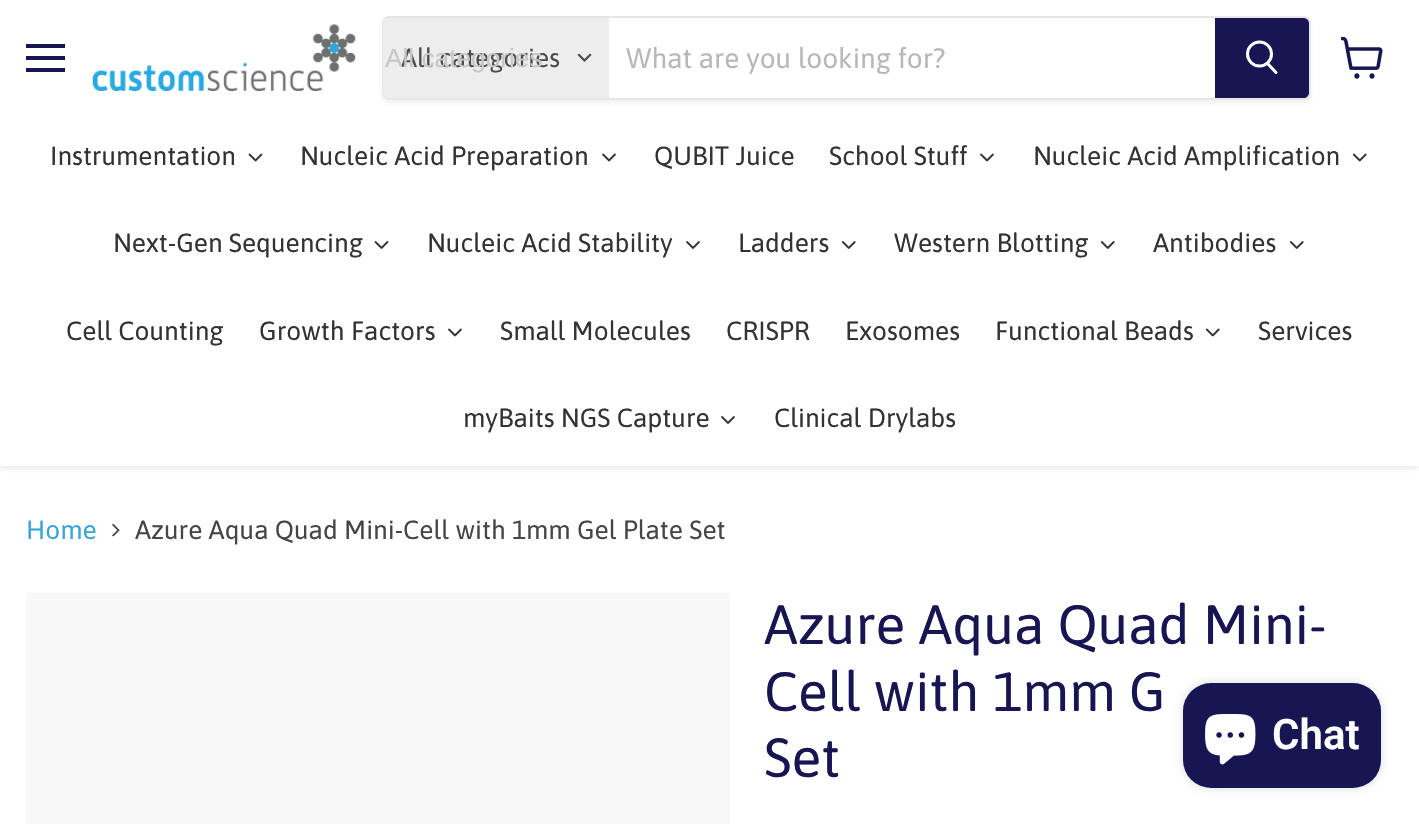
void draw(SkCanvas* canvas) {
	SkPaint fill;
	fill.setAntiAlias(true);
	auto makeFont = [&](const char* family, int weight, float size, bool italic = false) {
		SkFontStyle style(weight, SkFontStyle::kNormal_Width,
			italic ? SkFontStyle::kItalic_Slant : SkFontStyle::kUpright_Slant);
		SkFont result(fontMgr->matchFamilyStyle(family, style), size);
		result.setSubpixel(true);
		return result;
	};
	auto text = [&](const char* s, float x, float y, const SkFont& font) {
		canvas->drawString(s, x, y, font, fill);
	};
	auto box = [&](float l, float t, float r, float b) {
		canvas->drawRect(SkRect::MakeLTRB(l, t, r, b), fill);
	};
	auto roundBox = [&](float l, float t, float r, float b, float radius) {
		canvas->drawRoundRect(SkRect::MakeLTRB(l, t, r, b), radius, radius, fill);
	};
	auto picture = [&](const char* path, float l, float t, float r, float b) {
		auto image = SkImages::DeferredFromEncodedData(SkData::MakeFromFileName(path));
		canvas->drawImageRect(image, SkRect::MakeLTRB(l, t, r, b), SkSamplingOptions());
	};
	canvas->clear(0xFFFFFFFF);
	fill.setColor(0x40808080);
	fill.setMaskFilter(SkMaskFilter::MakeBlur(kNormal_SkBlurStyle, 3.5f));
	canvas->drawRect(SkRect::MakeLTRB(0, 2, 1419, 467), fill);
	fill.setMaskFilter(nullptr);
	fill.setColor(0xFFFFFFFF);
	box(0, 0, 1419, 466);
	fill.setColor(0xFF171653);
	box(26, 44, 65, 48);
	box(26, 56, 65, 60);
	box(26, 68, 65, 72);
	picture("image0.png", 92, 24, 356, 91);
	canvas->save();
	canvas->clipPath(SkPathBuilder(SkPathFillType::kEvenOdd).moveTo(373, 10).lineTo(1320, 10).lineTo(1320, 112).lineTo(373, 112).close().moveTo(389, 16).lineTo(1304, 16).cubicTo(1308, 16, 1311, 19, 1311, 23).lineTo(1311, 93).cubicTo(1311, 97, 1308, 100, 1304, 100).lineTo(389, 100).cubicTo(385, 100, 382, 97, 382, 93).lineTo(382, 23).cubicTo(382, 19, 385, 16, 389, 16).close().detach(), true);
	fill.setColor(0x1C808080);
	fill.setMaskFilter(SkMaskFilter::MakeBlur(kNormal_SkBlurStyle, 2.5f));
	canvas->drawRoundRect(SkRect::MakeLTRB(382, 19, 1311, 103), 7, 7, fill);
	fill.setMaskFilter(nullptr);
	canvas->restore();
	fill.setStyle(SkPaint::kStroke_Style);
	fill.setStrokeWidth(2);
	fill.setColor(0x33808080);
	canvas->drawRoundRect(SkRect::MakeLTRB(383, 17, 1310, 99), 6, 6, fill);
	fill.setStyle(SkPaint::kFill_Style);
	fill.setColor(0xFFEDEDED);
	canvas->drawPath(SkPathBuilder().moveTo(388, 18).lineTo(609, 18).lineTo(609, 98).lineTo(388, 98).cubicTo(385, 98, 383, 96, 383, 93).lineTo(383, 23).cubicTo(383, 20, 385, 18, 388, 18).close().detach(), fill);
	fill.setStyle(SkPaint::kStroke_Style);
	fill.setStrokeWidth(2.2f);
	fill.setStrokeCap(SkPaint::kSquare_Cap);
	fill.setColor(0xFF4D4D4D);
	canvas->drawPath(SkPathBuilder().moveTo(584.5f, 60.5f).lineTo(590, 55).moveTo(584.5f, 60.5f).lineTo(579, 55).detach(), fill);
	fill.setStyle(SkPaint::kFill_Style);
	fill.setColor(0xFF171653);
	canvas->drawPath(SkPathBuilder().moveTo(1216, 19).lineTo(1304, 19).cubicTo(1306, 19, 1308, 21, 1308, 23).lineTo(1308, 93).cubicTo(1308, 95, 1306, 97, 1304, 97).lineTo(1216, 97).close().detach(), fill);
	fill.setStyle(SkPaint::kStroke_Style);
	fill.setStrokeWidth(2);
	fill.setStrokeCap(SkPaint::kButt_Cap);
	canvas->drawPath(SkPathBuilder().moveTo(1216, 19).lineTo(1304, 19).cubicTo(1306, 19, 1308, 21, 1308, 23).lineTo(1308, 93).cubicTo(1308, 95, 1306, 97, 1304, 97).lineTo(1216, 97).close().detach(), fill);
	fill.setStrokeWidth(3);
	fill.setStrokeCap(SkPaint::kRound_Cap);
	fill.setColor(0xFFFFFFFF);
	canvas->drawPath(SkPathBuilder().moveTo(1276, 72.5f).lineTo(1268, 64).detach(), fill);
	fill.setStrokeCap(SkPaint::kButt_Cap);
	canvas->drawCircle(1259.5f, 54, 12, fill);
	picture("image1.png", 1341, 37, 1383, 79);
	picture("image2.png", 248, 153, 263, 162);
	picture("image3.png", 602, 153, 616, 162);
	picture("image3.png", 980, 153, 994, 162);
	picture("image4.png", 1352, 153, 1367, 162);
	picture("image5.png", 374, 241, 389, 249);
	picture("image6.png", 686, 241, 700, 249);
	picture("image7.png", 841, 241, 856, 249);
	picture("image7.png", 1100, 241, 1115, 249);
	picture("image7.png", 1289, 241, 1304, 249);
	picture("image3.png", 448, 328, 462, 337);
	picture("image4.png", 1205, 328, 1220, 337);
	picture("image6.png", 721, 416, 735, 424);
	picture("image8.png", 112, 523, 120, 537);
	fill.setStyle(SkPaint::kFill_Style);
	fill.setColor(0xFFF8F8F8);
	box(26, 593, 730, 824);
	fill.setColor(0x26000000);
	fill.setMaskFilter(SkMaskFilter::MakeBlur(kNormal_SkBlurStyle, 4.5f));
	canvas->drawRoundRect(SkRect::MakeLTRB(1183, 683, 1381, 788), 28, 28, fill);
	fill.setMaskFilter(nullptr);
	fill.setColor(0xFF171653);
	roundBox(1183, 683, 1381, 788, 28);
	picture("image9.png", 1205, 714, 1256, 765);
	auto font1 = makeFont("Asap", 400, 26.25f);
	fill.setColor(0xFF4D4D4D);
	text("All categories", 401, 67, font1);
	auto font2 = makeFont("Liberation Sans", 400, 26.25f);
	fill.setColor(0xFFC7C7C7);
	text("All categories", 385, 67, font2);
	auto font3 = makeFont("Asap", 400, 28);
	fill.setColor(0xFFB8B8B8);
	text("What are you looking for?", 626, 68, font3);
	fill.setColor(0xFF333333);
	text("Instrumentation", 50, 165, font1);
	text("Nucleic Acid Preparation", 300, 165, font1);
	text("QUBIT Juice", 654, 165, font1);
	text("School Stuff", 829, 165, font1);
	text("Nucleic Acid Amplification", 1033, 165, font1);
	text("Next-Gen Sequencing", 113, 252, font1);
	text("Nucleic Acid Stability", 427, 252, font1);
	text("Ladders", 738, 252, font1);
	text("Western Blotting", 894, 252, font1);
	text("Antibodies", 1153, 252, font1);
	text("Cell Counting", 66, 340, font1);
	text("Growth Factors", 259, 340, font1);
	text("Small Molecules", 500, 340, font1);
	text("CRISPR", 726, 340, font1);
	text("Exosomes", 845, 340, font1);
	text("Functional Beads", 995, 340, font1);
	text("Services", 1258, 340, font1);
	text("myBaits NGS Capture", 463, 427, font1);
	text("Clinical Drylabs", 774, 427, font1);
	fill.setColor(0xFF3BA5D7);
	text("Home", 26, 539, font1);
	fill.setColor(0xFF464646);
	text("Azure Aqua Quad Mini-Cell with 1mm Gel Plate Set", 135, 539, font1);
	auto font4 = makeFont("Asap", 400, 55.1f);
	fill.setColor(0xFF171653);
	text("Azure Aqua Quad Mini-", 764, 644, font4);
	text("Cell with 1mm G", 764, 711, font4);
	text("Set", 764, 777, font4);
	auto font5 = makeFont("Roboto", 600, 42);
	fill.setColor(0xFFFFFFFF);
	text("Chat", 1272, 749, font5);
}
